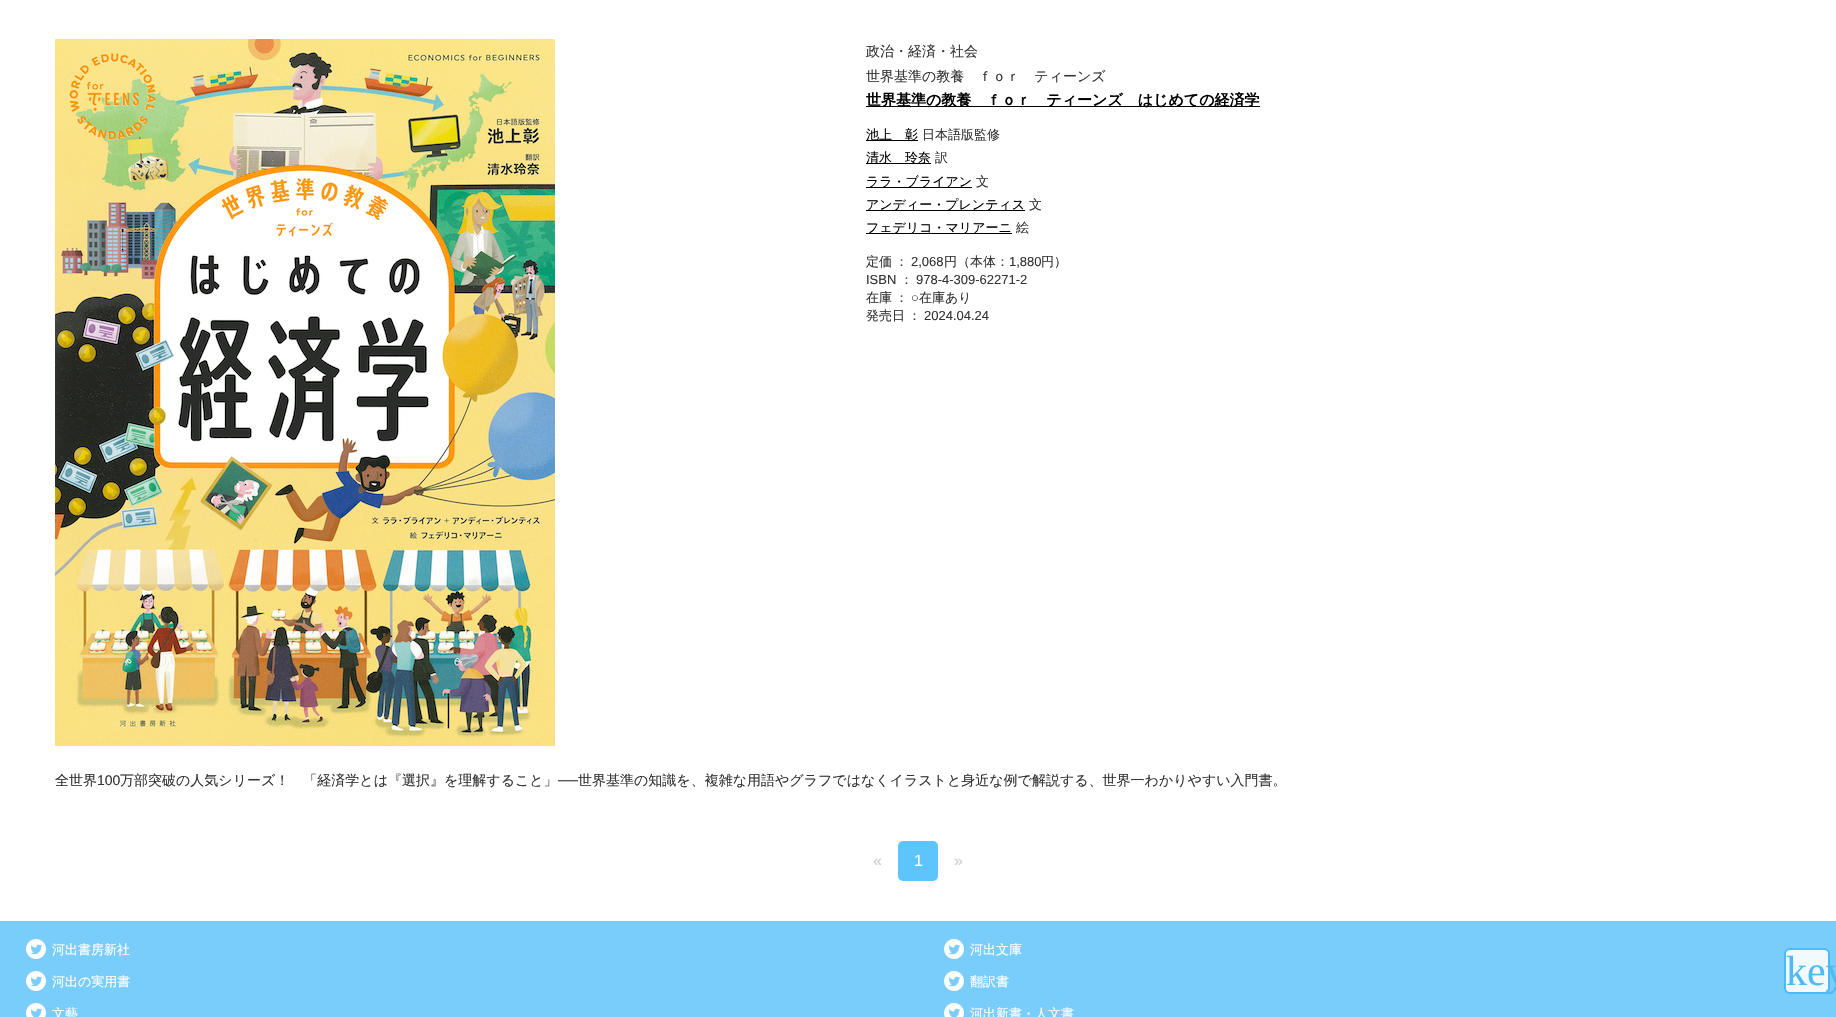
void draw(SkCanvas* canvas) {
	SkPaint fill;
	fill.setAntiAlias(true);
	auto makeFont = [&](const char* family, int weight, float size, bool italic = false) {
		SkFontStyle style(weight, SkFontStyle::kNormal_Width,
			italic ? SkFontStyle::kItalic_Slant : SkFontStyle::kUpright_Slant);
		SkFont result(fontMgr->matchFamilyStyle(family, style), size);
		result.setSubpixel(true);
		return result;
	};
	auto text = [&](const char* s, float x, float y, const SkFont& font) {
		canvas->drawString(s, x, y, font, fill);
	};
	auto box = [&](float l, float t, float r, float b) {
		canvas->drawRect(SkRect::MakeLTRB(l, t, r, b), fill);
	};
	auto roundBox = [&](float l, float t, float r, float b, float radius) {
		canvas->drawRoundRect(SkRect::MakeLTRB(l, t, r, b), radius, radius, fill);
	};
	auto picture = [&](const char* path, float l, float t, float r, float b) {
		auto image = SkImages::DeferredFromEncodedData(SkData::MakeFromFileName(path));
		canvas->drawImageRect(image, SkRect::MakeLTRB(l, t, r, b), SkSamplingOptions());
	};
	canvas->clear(0xFFFFFFFF);
	picture("image0.png", 55, 39, 555, 746);
	fill.setColor(0xFF000000);
	box(866, 106, 1260, 107);
	box(866, 140, 918, 141);
	box(866, 163, 931, 164);
	box(866, 187, 972, 188);
	box(866, 210, 1025, 211);
	box(866, 233, 1012, 234);
	fill.setColor(0xFF5EC5FC);
	roundBox(898, 841, 938, 881, 5);
	fill.setColor(0xFF78CDFA);
	box(0, 921, 1836, 1017);
	picture("image1.png", 26, 939, 46, 959);
	picture("image1.png", 944, 939, 964, 959);
	picture("image1.png", 26, 971, 46, 991);
	picture("image1.png", 944, 971, 964, 991);
	picture("image2.png", 26, 1003, 46, 1017);
	picture("image2.png", 944, 1003, 964, 1017);
	fill.setColor(0xFFF2FAFF);
	canvas->drawRoundRect(SkRect::MakeLTRB(1785, 949, 1829, 993), 5, 5, fill);
	fill.setStyle(SkPaint::kStroke_Style);
	fill.setStrokeWidth(2);
	fill.setColor(0xFF4DBAF4);
	canvas->drawRoundRect(SkRect::MakeLTRB(1785, 949, 1829, 993), 5, 5, fill);
	auto font1 = makeFont("WenQuanYi Zen Hei", 500, 14);
	fill.setStyle(SkPaint::kFill_Style);
	fill.setColor(0xFF333333);
	text("政治・経済・社会", 866, 56, font1);
	text("世界基準の教養　ｆｏｒ　ティーンズ", 866, 81, font1);
	auto font2 = makeFont("WenQuanYi Zen Hei", 700, 15);
	fill.setColor(0xFF000000);
	text("世界基準の教養　ｆｏｒ　ティーンズ　はじめての経済学", 866, 105, font2);
	auto font3 = makeFont("WenQuanYi Zen Hei", 500, 13);
	text("池上　彰", 866, 139, font3);
	fill.setColor(0xFF333333);
	text("日本語版監修", 922, 139, font3);
	fill.setColor(0xFF000000);
	text("清水　玲奈", 866, 162, font3);
	fill.setColor(0xFF333333);
	text("訳", 935, 162, font3);
	fill.setColor(0xFF000000);
	text("ララ・ブライアン", 866, 186, font3);
	fill.setColor(0xFF333333);
	text("文", 976, 186, font3);
	fill.setColor(0xFF000000);
	text("アンディー・プレンティス", 866, 209, font3);
	fill.setColor(0xFF333333);
	text("文", 1029, 209, font3);
	fill.setColor(0xFF000000);
	text("フェデリコ・マリアーニ", 866, 232, font3);
	fill.setColor(0xFF333333);
	text("絵", 1016, 232, font3);
	text("定価", 866, 266, font3);
	text("：", 895, 266, font3);
	auto font4 = makeFont("Liberation Sans", 400, 13);
	text("2,068", 911, 266, font4);
	text("円（本体：", 944, 266, font3);
	text("1,880", 1009, 266, font4);
	text("円）", 1041, 266, font3);
	text("ISBN", 866, 284, font4);
	text("：", 900, 284, font3);
	text("978-4-309-62271-2", 916, 284, font4);
	text("在庫", 866, 302, font3);
	text("：", 895, 302, font3);
	text("○", 911, 302, font4);
	text("在庫あり", 919, 302, font3);
	text("発売日", 866, 320, font3);
	text("：", 908, 320, font3);
	text("2024.04.24", 924, 320, font4);
	text("全世界", 55, 785, font1);
	auto font5 = makeFont("Liberation Sans", 400, 14);
	text("100", 97, 785, font5);
	text("万部突破の人気シリーズ！　「経済学とは『選択』を理解すること」", 120, 785, font1);
	text("──", 558, 785, font5);
	text("世界基準の知識を、複雑な用語やグラフではなくイラストと身近な例で解説する、世界一わかりやすい入門書。", 578, 785, font1);
	auto font6 = makeFont("Liberation Sans", 400, 16);
	fill.setColor(0xFFCCCCCC);
	text("«", 873, 866, font6);
	fill.setColor(0xFFFFFFFF);
	text("1", 914, 866, font6);
	fill.setColor(0xFFCCCCCC);
	text("»", 954, 866, font6);
	fill.setColor(0xFFFFFFFF);
	text("河出書房新社", 52, 954, font3);
	text("河出文庫", 970, 954, font3);
	text("河出の実用書", 52, 986, font3);
	text("翻訳書", 970, 986, font3);
	text("文藝", 52, 1018, font3);
	text("河出新書・人文書", 970, 1018, font3);
	auto font7 = makeFont("Liberation Serif", 400, 42);
	fill.setColor(0xFF4DBAF4);
	text("key", 1786, 985, font7);
}
